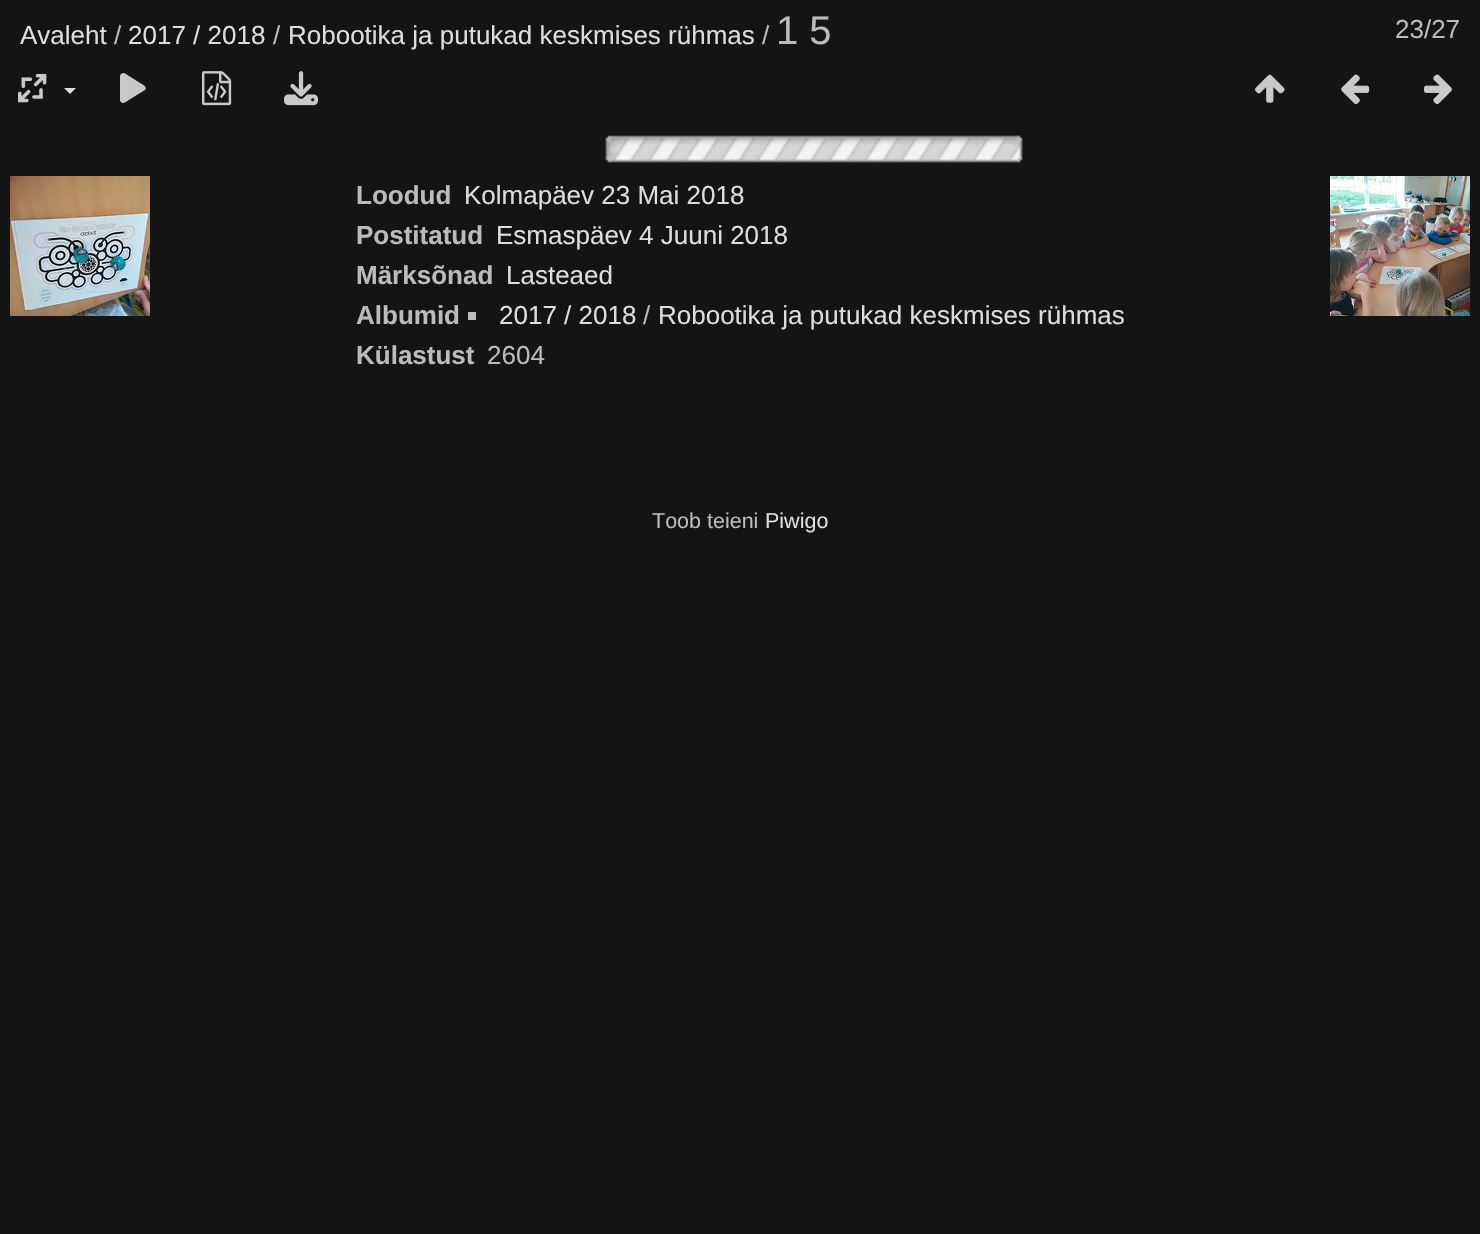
void draw(SkCanvas* canvas) {
	SkPaint fill;
	fill.setAntiAlias(true);
	auto makeFont = [&](const char* family, int weight, float size, bool italic = false) {
		SkFontStyle style(weight, SkFontStyle::kNormal_Width,
			italic ? SkFontStyle::kItalic_Slant : SkFontStyle::kUpright_Slant);
		SkFont result(fontMgr->matchFamilyStyle(family, style), size);
		result.setSubpixel(true);
		return result;
	};
	auto text = [&](const char* s, float x, float y, const SkFont& font) {
		canvas->drawString(s, x, y, font, fill);
	};
	auto box = [&](float l, float t, float r, float b) {
		canvas->drawRect(SkRect::MakeLTRB(l, t, r, b), fill);
	};
	auto picture = [&](const char* path, float l, float t, float r, float b) {
		auto image = SkImages::DeferredFromEncodedData(SkData::MakeFromFileName(path));
		canvas->drawImageRect(image, SkRect::MakeLTRB(l, t, r, b), SkSamplingOptions());
	};
	canvas->clear(0xFF141414);
	picture("image0.png", 18, 73, 47, 103);
	fill.setColor(0xFFDDDDDD);
	canvas->drawPath(SkPathBuilder().moveTo(64, 88).lineTo(76, 88).lineTo(70, 94).close().detach(), fill);
	fill.setColor(0xFFC9C9C9);
	canvas->drawPath(SkPathBuilder().moveTo(125, 73.5f).cubicTo(123, 72.5f, 120.5f, 73.5f, 120, 76).lineTo(120, 100.5f).cubicTo(121.5f, 105, 126, 102, 128, 100.5f).lineTo(145, 90).cubicTo(147.5f, 87, 143, 84.5f, 141, 83.5f).close().detach(), fill);
	picture("image1.png", 202, 71, 232, 106);
	picture("image2.png", 284, 71, 318, 106);
	picture("image3.png", 1255, 74, 1285, 103);
	picture("image4.png", 1341, 74, 1370, 104);
	picture("image5.png", 1424, 74, 1452, 105);
	picture("image6.png", 605, 135, 1023, 163);
	picture("image7.png", 10, 176, 150, 316);
	picture("image8.png", 1330, 176, 1470, 316);
	fill.setColor(0xFFBBBBBB);
	box(468, 312, 476, 320);
	auto font1 = makeFont("Liberation Sans", 400, 26);
	fill.setColor(0xFFDDDDDD);
	text("Avaleht", 20, 44, font1);
	fill.setColor(0xFFBBBBBB);
	text("/", 114, 44, font1);
	fill.setColor(0xFFDDDDDD);
	text("2017 / 2018", 128, 44, font1);
	fill.setColor(0xFFBBBBBB);
	text("/", 273, 44, font1);
	fill.setColor(0xFFDDDDDD);
	text("Robootika ja putukad keskmises rühmas", 288, 44, font1);
	fill.setColor(0xFFBBBBBB);
	text("/", 762, 44, font1);
	auto font2 = makeFont("Liberation Sans", 400, 40);
	text("1 5", 776, 44, font2);
	text("23/27", 1395, 38, font1);
	auto font3 = makeFont("Liberation Sans", 700, 26);
	text("Loodud", 356, 204, font3);
	fill.setColor(0xFFDDDDDD);
	text("Kolmapäev 23 Mai 2018", 464, 204, font1);
	fill.setColor(0xFFBBBBBB);
	text("Postitatud", 356, 244, font3);
	fill.setColor(0xFFDDDDDD);
	text("Esmaspäev 4 Juuni 2018", 496, 244, font1);
	fill.setColor(0xFFBBBBBB);
	text("Märksõnad", 356, 284, font3);
	fill.setColor(0xFFDDDDDD);
	text("Lasteaed", 506, 284, font1);
	fill.setColor(0xFFBBBBBB);
	text("Albumid", 356, 324, font3);
	fill.setColor(0xFFDDDDDD);
	text("2017 / 2018", 499, 324, font1);
	fill.setColor(0xFFBBBBBB);
	text("/", 643, 324, font1);
	fill.setColor(0xFFDDDDDD);
	text("Robootika ja putukad keskmises rühmas", 658, 324, font1);
	fill.setColor(0xFFBBBBBB);
	text("Külastust", 356, 364, font3);
	text("2604", 487, 364, font1);
	auto font4 = makeFont("Liberation Sans", 400, 21.5f);
	text("Toob teieni", 652, 528, font4);
	fill.setColor(0xFFDDDDDD);
	text("Piwigo", 765, 528, font4);
}
